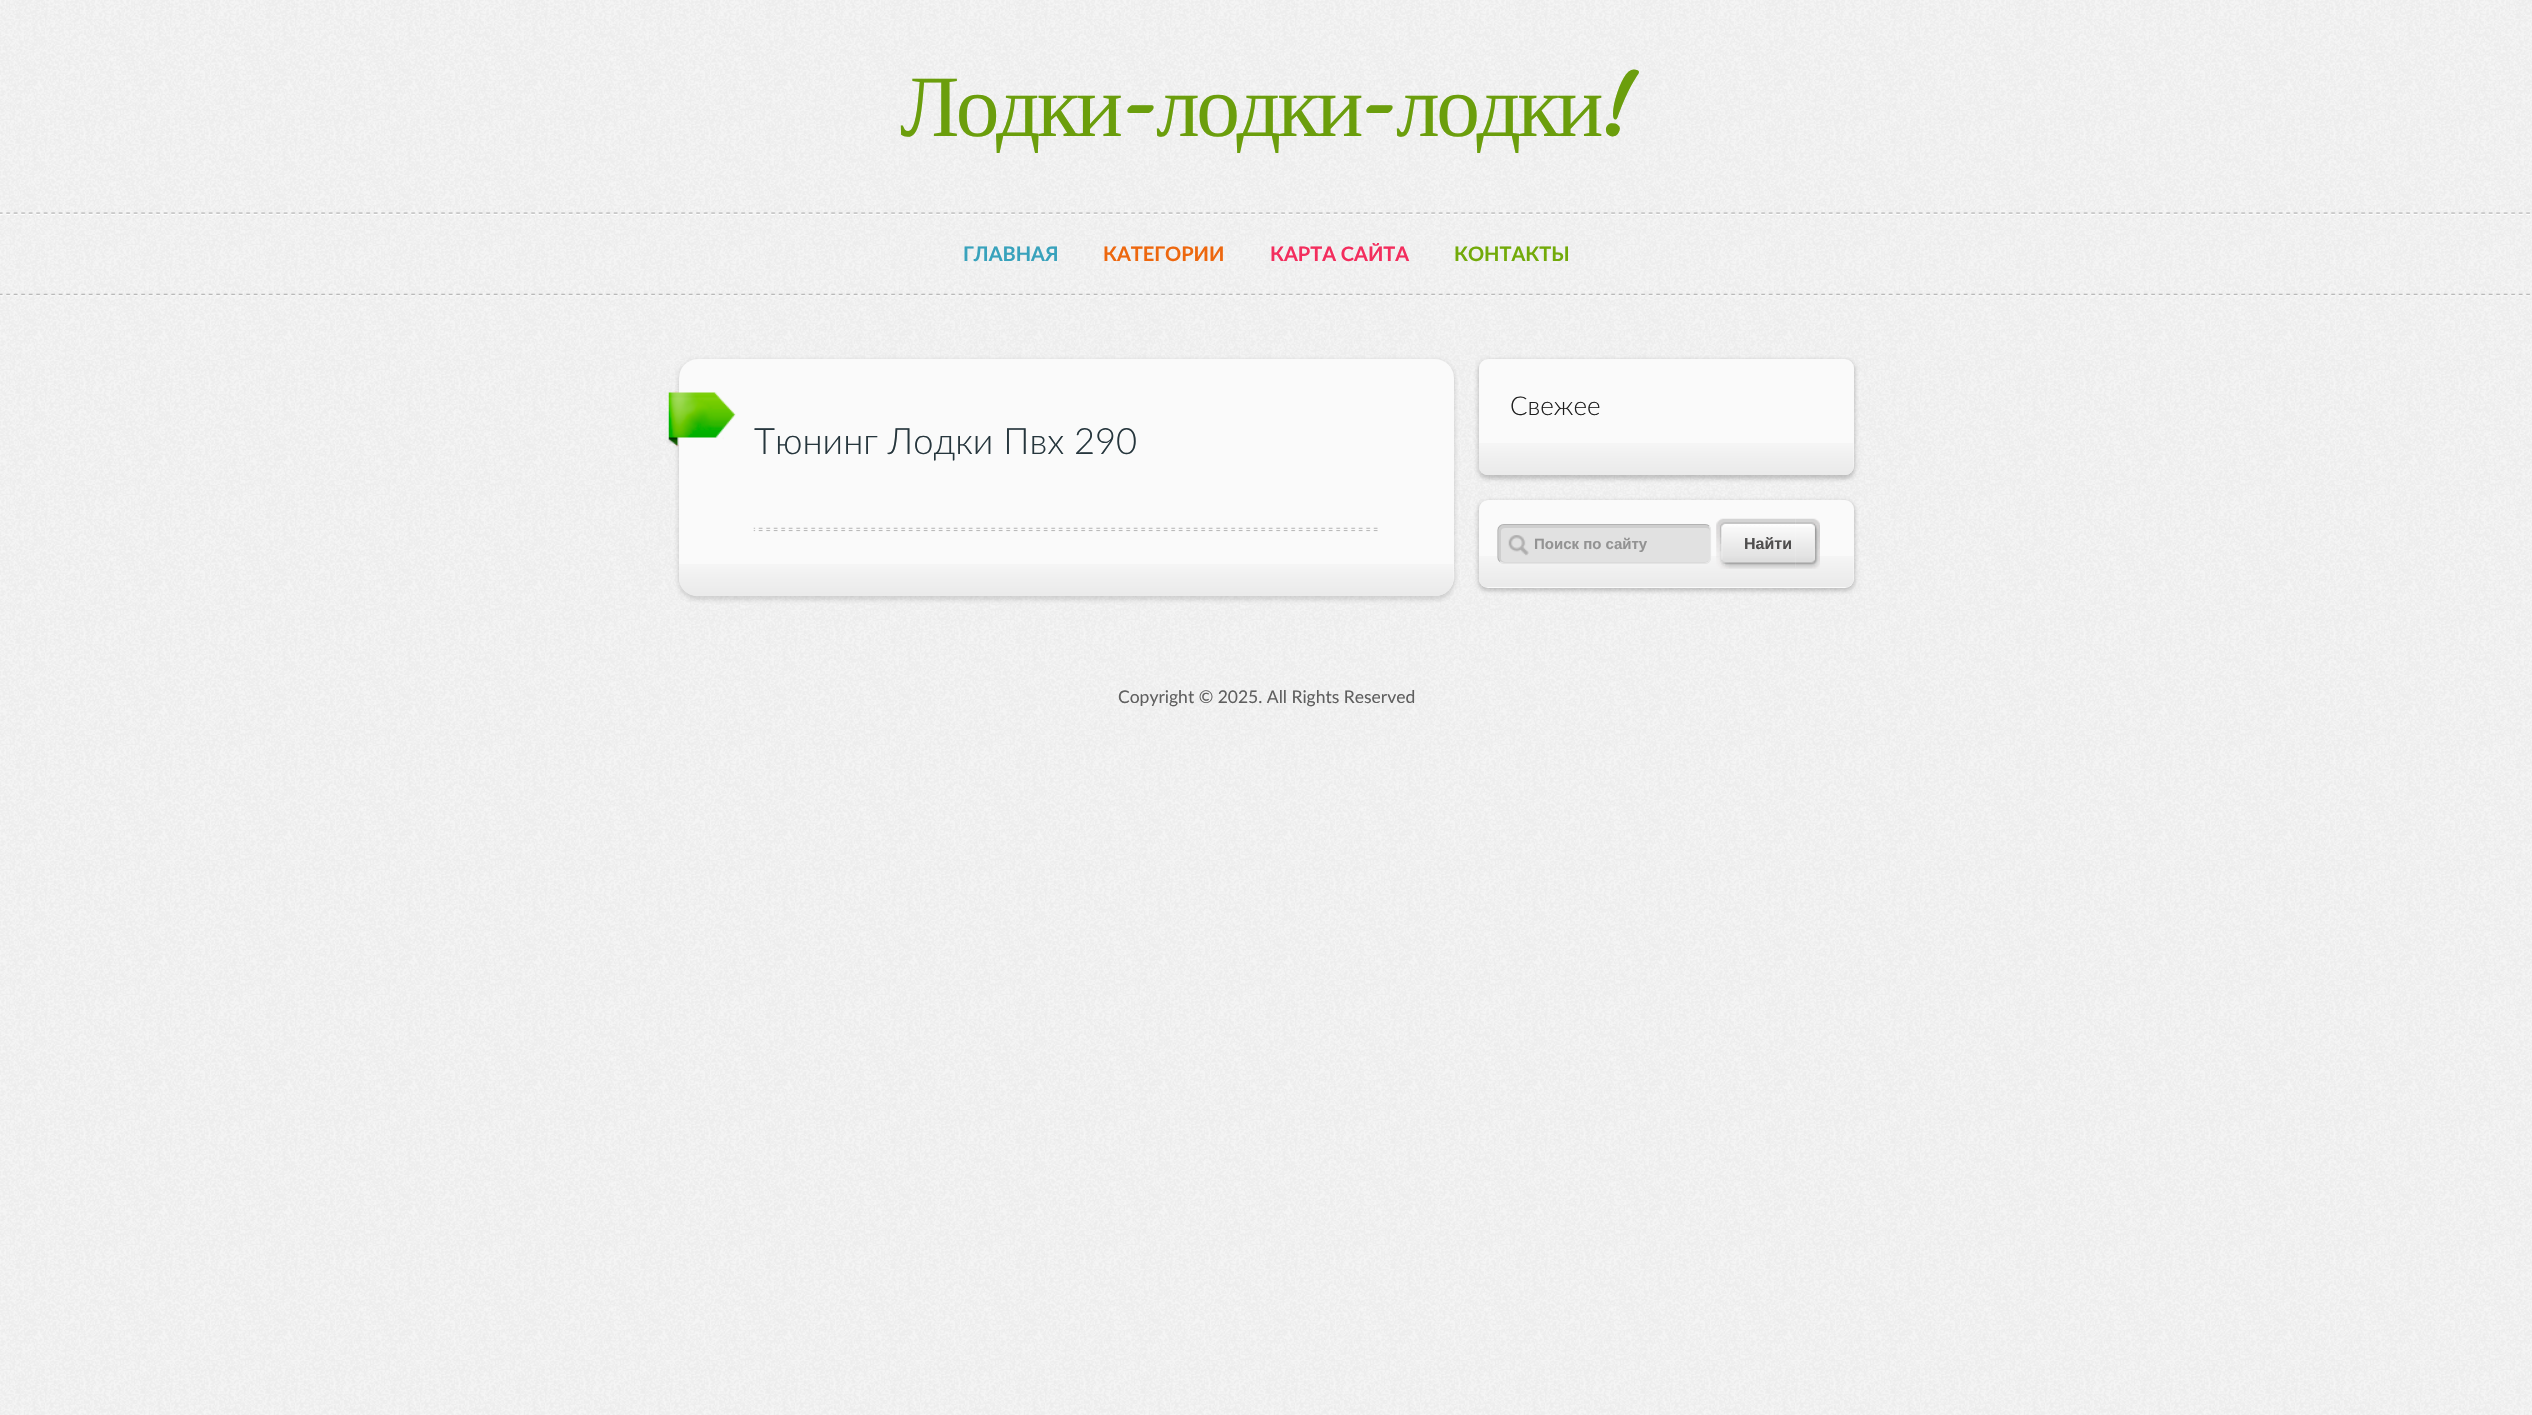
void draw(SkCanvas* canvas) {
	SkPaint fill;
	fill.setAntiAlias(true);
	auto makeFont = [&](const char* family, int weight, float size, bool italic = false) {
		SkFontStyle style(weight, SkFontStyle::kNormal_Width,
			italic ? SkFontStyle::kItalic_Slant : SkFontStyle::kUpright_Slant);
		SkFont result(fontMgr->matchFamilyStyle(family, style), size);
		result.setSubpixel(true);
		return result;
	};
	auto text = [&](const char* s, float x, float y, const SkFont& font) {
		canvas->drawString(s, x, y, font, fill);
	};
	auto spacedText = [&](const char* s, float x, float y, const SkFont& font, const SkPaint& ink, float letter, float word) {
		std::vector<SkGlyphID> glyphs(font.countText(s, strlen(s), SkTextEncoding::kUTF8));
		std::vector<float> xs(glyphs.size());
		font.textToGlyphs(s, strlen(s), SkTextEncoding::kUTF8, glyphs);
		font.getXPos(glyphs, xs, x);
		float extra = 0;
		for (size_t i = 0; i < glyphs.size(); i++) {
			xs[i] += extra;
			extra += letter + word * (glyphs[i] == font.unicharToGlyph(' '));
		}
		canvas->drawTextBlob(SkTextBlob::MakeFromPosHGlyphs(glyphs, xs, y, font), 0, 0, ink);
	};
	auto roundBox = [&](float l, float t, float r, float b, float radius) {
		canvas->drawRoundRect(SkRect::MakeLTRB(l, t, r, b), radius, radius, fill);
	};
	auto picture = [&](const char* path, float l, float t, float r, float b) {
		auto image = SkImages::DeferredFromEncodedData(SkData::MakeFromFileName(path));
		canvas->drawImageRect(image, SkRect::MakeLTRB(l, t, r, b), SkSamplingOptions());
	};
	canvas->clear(0xFFFFFFFF);
	picture("image0.png", 0, 0, 2532, 1415);
	picture("image1.png", 0, 212, 2530, 215);
	picture("image2.png", 0, 293, 2531, 297);
	fill.setColor(0x21000000);
	fill.setMaskFilter(SkMaskFilter::MakeBlur(kNormal_SkBlurStyle, 2));
	canvas->drawRoundRect(SkRect::MakeLTRB(678, 360, 1455, 600), 20, 20, fill);
	fill.setMaskFilter(nullptr);
	fill.setColor(0xFFFAFAFA);
	roundBox(679, 359, 1454, 596, 19);
	picture("image3.png", 679, 564, 1454, 596);
	picture("image4.png", 666, 391, 736, 447);
	picture("image5.png", 753, 527, 1378, 532);
	fill.setColor(0x33000000);
	fill.setMaskFilter(SkMaskFilter::MakeBlur(kNormal_SkBlurStyle, 2));
	canvas->drawRoundRect(SkRect::MakeLTRB(1478, 360, 1855, 479), 10, 10, fill);
	fill.setMaskFilter(nullptr);
	fill.setColor(0xFFFAFAFA);
	roundBox(1479, 359, 1854, 475, 9);
	picture("image6.png", 1479, 443, 1854, 475);
	fill.setColor(0x33000000);
	fill.setMaskFilter(SkMaskFilter::MakeBlur(kNormal_SkBlurStyle, 2));
	canvas->drawRoundRect(SkRect::MakeLTRB(1478, 501, 1855, 591), 10, 10, fill);
	fill.setMaskFilter(nullptr);
	fill.setColor(0xFFFAFAFA);
	roundBox(1479, 500, 1854, 588, 9);
	picture("image7.png", 1479, 556, 1854, 587);
	fill.setColor(0xFFE1E1E1);
	roundBox(1498, 524, 1711, 564, 6);
	picture("image8.png", 1508, 535, 1529, 556);
	fill.setColor(0xFFCECECE);
	canvas->drawPath(SkPathBuilder().moveTo(1505, 528).lineTo(1706, 528).cubicTo(1708, 528, 1710, 529, 1710, 531).lineTo(1710, 530).cubicTo(1710, 527, 1708, 525, 1705, 525).lineTo(1504, 525).cubicTo(1501, 525, 1499, 527, 1499, 530).lineTo(1499, 558).cubicTo(1499, 561, 1501, 563, 1504, 563).lineTo(1705, 563).cubicTo(1707, 563, 1708, 562, 1709, 561).lineTo(1706, 562).lineTo(1505, 562).cubicTo(1503, 562, 1501, 561, 1501, 559).lineTo(1501, 531).cubicTo(1501, 529, 1503, 528, 1505, 528).close().detach(), fill);
	fill.setStyle(SkPaint::kStroke_Style);
	fill.setStrokeWidth(1.2f);
	fill.setColor(0xFFE7E7E7);
	canvas->drawPath(SkPathBuilder().moveTo(1709, 526).cubicTo(1710, 527, 1710.5f, 528.5f, 1710.5f, 530).lineTo(1710.5f, 557.5f).cubicTo(1710.5f, 559, 1710, 560.5f, 1709, 561.5f).cubicTo(1708, 562.5f, 1706.5f, 563, 1705, 563).lineTo(1504, 563).cubicTo(1502.5f, 563, 1501, 562.5f, 1500, 561.5f).detach(), fill);
	fill.setColor(0xFFB2B2B2);
	canvas->drawPath(SkPathBuilder().moveTo(1500, 561.5f).cubicTo(1498.5f, 560.5f, 1498, 559, 1498, 557.5f).lineTo(1498, 530).cubicTo(1498, 528.5f, 1498.5f, 527, 1500, 526).cubicTo(1501, 525, 1502.5f, 524.5f, 1504, 524.5f).lineTo(1705, 524.5f).cubicTo(1706.5f, 524.5f, 1708, 525, 1709, 526).detach(), fill);
	picture("image9.png", 1794, 518, 1820, 569);
	picture("image10.png", 1716, 518, 1795, 569);
	auto font1 = makeFont("Liberation Serif", 400, 87.5f);
	fill.setStyle(SkPaint::kFill_Style);
	fill.setColor(0xFF6B9E0C);
	spacedText("Лодки", 900, 136, font1, fill, -3.5f, 0);
	auto font2 = makeFont("Courgette", 400, 87.5f);
	spacedText("-", 1120, 136, font2, fill, -3.5f, 0);
	spacedText("лодки", 1156, 136, font1, fill, -3.5f, 0);
	spacedText("-", 1359, 136, font2, fill, -3.5f, 0);
	spacedText("лодки", 1396, 136, font1, fill, -3.5f, 0);
	spacedText("!", 1599, 136, font2, fill, -3.5f, 0);
	auto font3 = makeFont("Lato", 700, 20);
	fill.setColor(0xFF38A2BC);
	text("ГЛАВНАЯ", 963, 261, font3);
	fill.setColor(0xFFED670E);
	text("КАТЕГОРИИ", 1103, 261, font3);
	fill.setColor(0xFFF32D5D);
	text("КАРТА САЙТА", 1270, 261, font3);
	fill.setColor(0xFF72AA09);
	text("КОНТАКТЫ", 1454, 261, font3);
	auto font4 = makeFont("Lato", 300, 36.25f);
	fill.setColor(0xFF26363D);
	text("Тюнинг Лодки Пвх 290", 754, 454, font4);
	auto font5 = makeFont("Lato", 300, 26);
	fill.setColor(0xFF1F1F1F);
	text("Свежее", 1510, 415, font5);
	auto font6 = makeFont("Liberation Sans", 700, 15);
	fill.setColor(0xFF939393);
	text("Поиск по сайту", 1534, 549, font6);
	auto font7 = makeFont("Liberation Sans", 700, 16);
	fill.setColor(0xFF4F4E4E);
	text("Найти", 1744, 549, font7);
	auto font8 = makeFont("Lato", 400, 17.5f);
	fill.setColor(0xFF5F5F5F);
	text("Copyright © 2025. All Rights Reserved", 1118, 703, font8);
}
